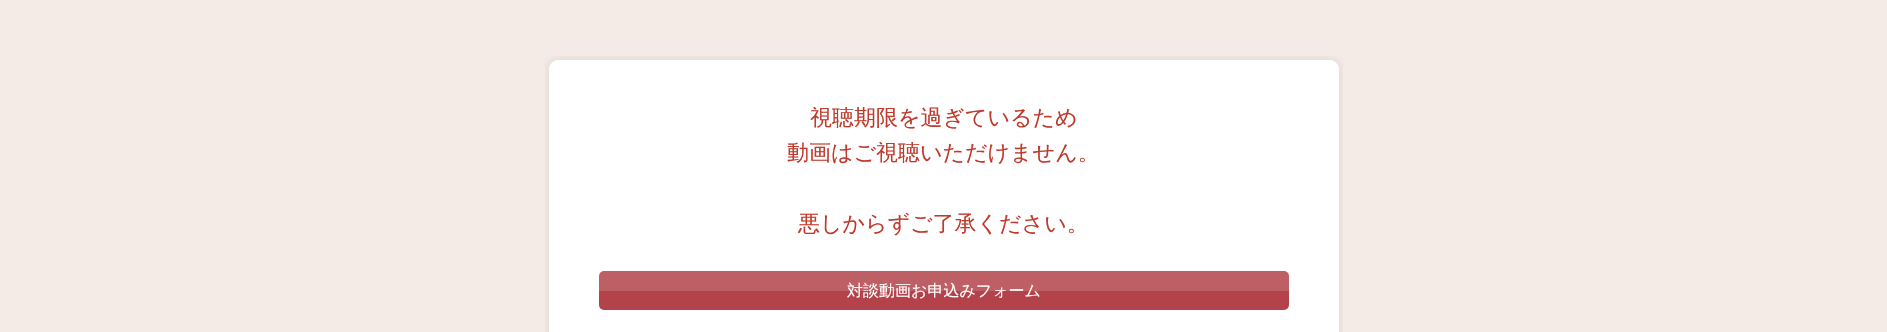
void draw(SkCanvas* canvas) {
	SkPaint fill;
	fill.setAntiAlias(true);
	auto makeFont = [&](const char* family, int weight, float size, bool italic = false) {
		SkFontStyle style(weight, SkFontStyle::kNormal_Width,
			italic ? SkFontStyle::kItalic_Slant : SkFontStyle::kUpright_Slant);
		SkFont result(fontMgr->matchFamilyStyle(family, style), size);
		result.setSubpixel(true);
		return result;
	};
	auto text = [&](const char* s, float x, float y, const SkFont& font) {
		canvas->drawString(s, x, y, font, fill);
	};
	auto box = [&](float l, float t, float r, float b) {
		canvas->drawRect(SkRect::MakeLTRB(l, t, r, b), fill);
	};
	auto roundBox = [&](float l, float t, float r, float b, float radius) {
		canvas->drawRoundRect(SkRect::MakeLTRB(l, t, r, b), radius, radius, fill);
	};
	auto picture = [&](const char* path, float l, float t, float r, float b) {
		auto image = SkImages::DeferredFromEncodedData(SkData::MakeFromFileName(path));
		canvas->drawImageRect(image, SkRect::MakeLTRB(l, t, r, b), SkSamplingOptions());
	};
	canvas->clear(0xFFF5EBE6);
	picture("image0.png", 545, 56, 559, 70);
	picture("image1.png", 559, 56, 1329, 70);
	picture("image2.png", 1329, 56, 1343, 70);
	picture("image3.png", 545, 70, 559, 332);
	fill.setColor(0xFFFFFFFF);
	box(559, 70, 1329, 332);
	fill.setColor(0xFFB3424A);
	roundBox(599, 271, 1289, 310, 5);
	picture("image4.png", 1329, 70, 1343, 332);
	auto font1 = makeFont("WenQuanYi Zen Hei", 500, 22);
	fill.setColor(0xFFC0392B);
	text("視聴期限を過ぎているため", 810, 125, font1);
	text("動画はご視聴いただけません。", 787, 160, font1);
	text("悪しからずご了承ください。", 798, 231, font1);
	auto font2 = makeFont("WenQuanYi Zen Hei", 500, 16);
	fill.setColor(0xFFFFFFFF);
	text("対談動画お申込みフォーム", 847, 296, font2);
	fill.setColor(0x26FFFFFF);
	box(599, 271, 1289, 291);
}
